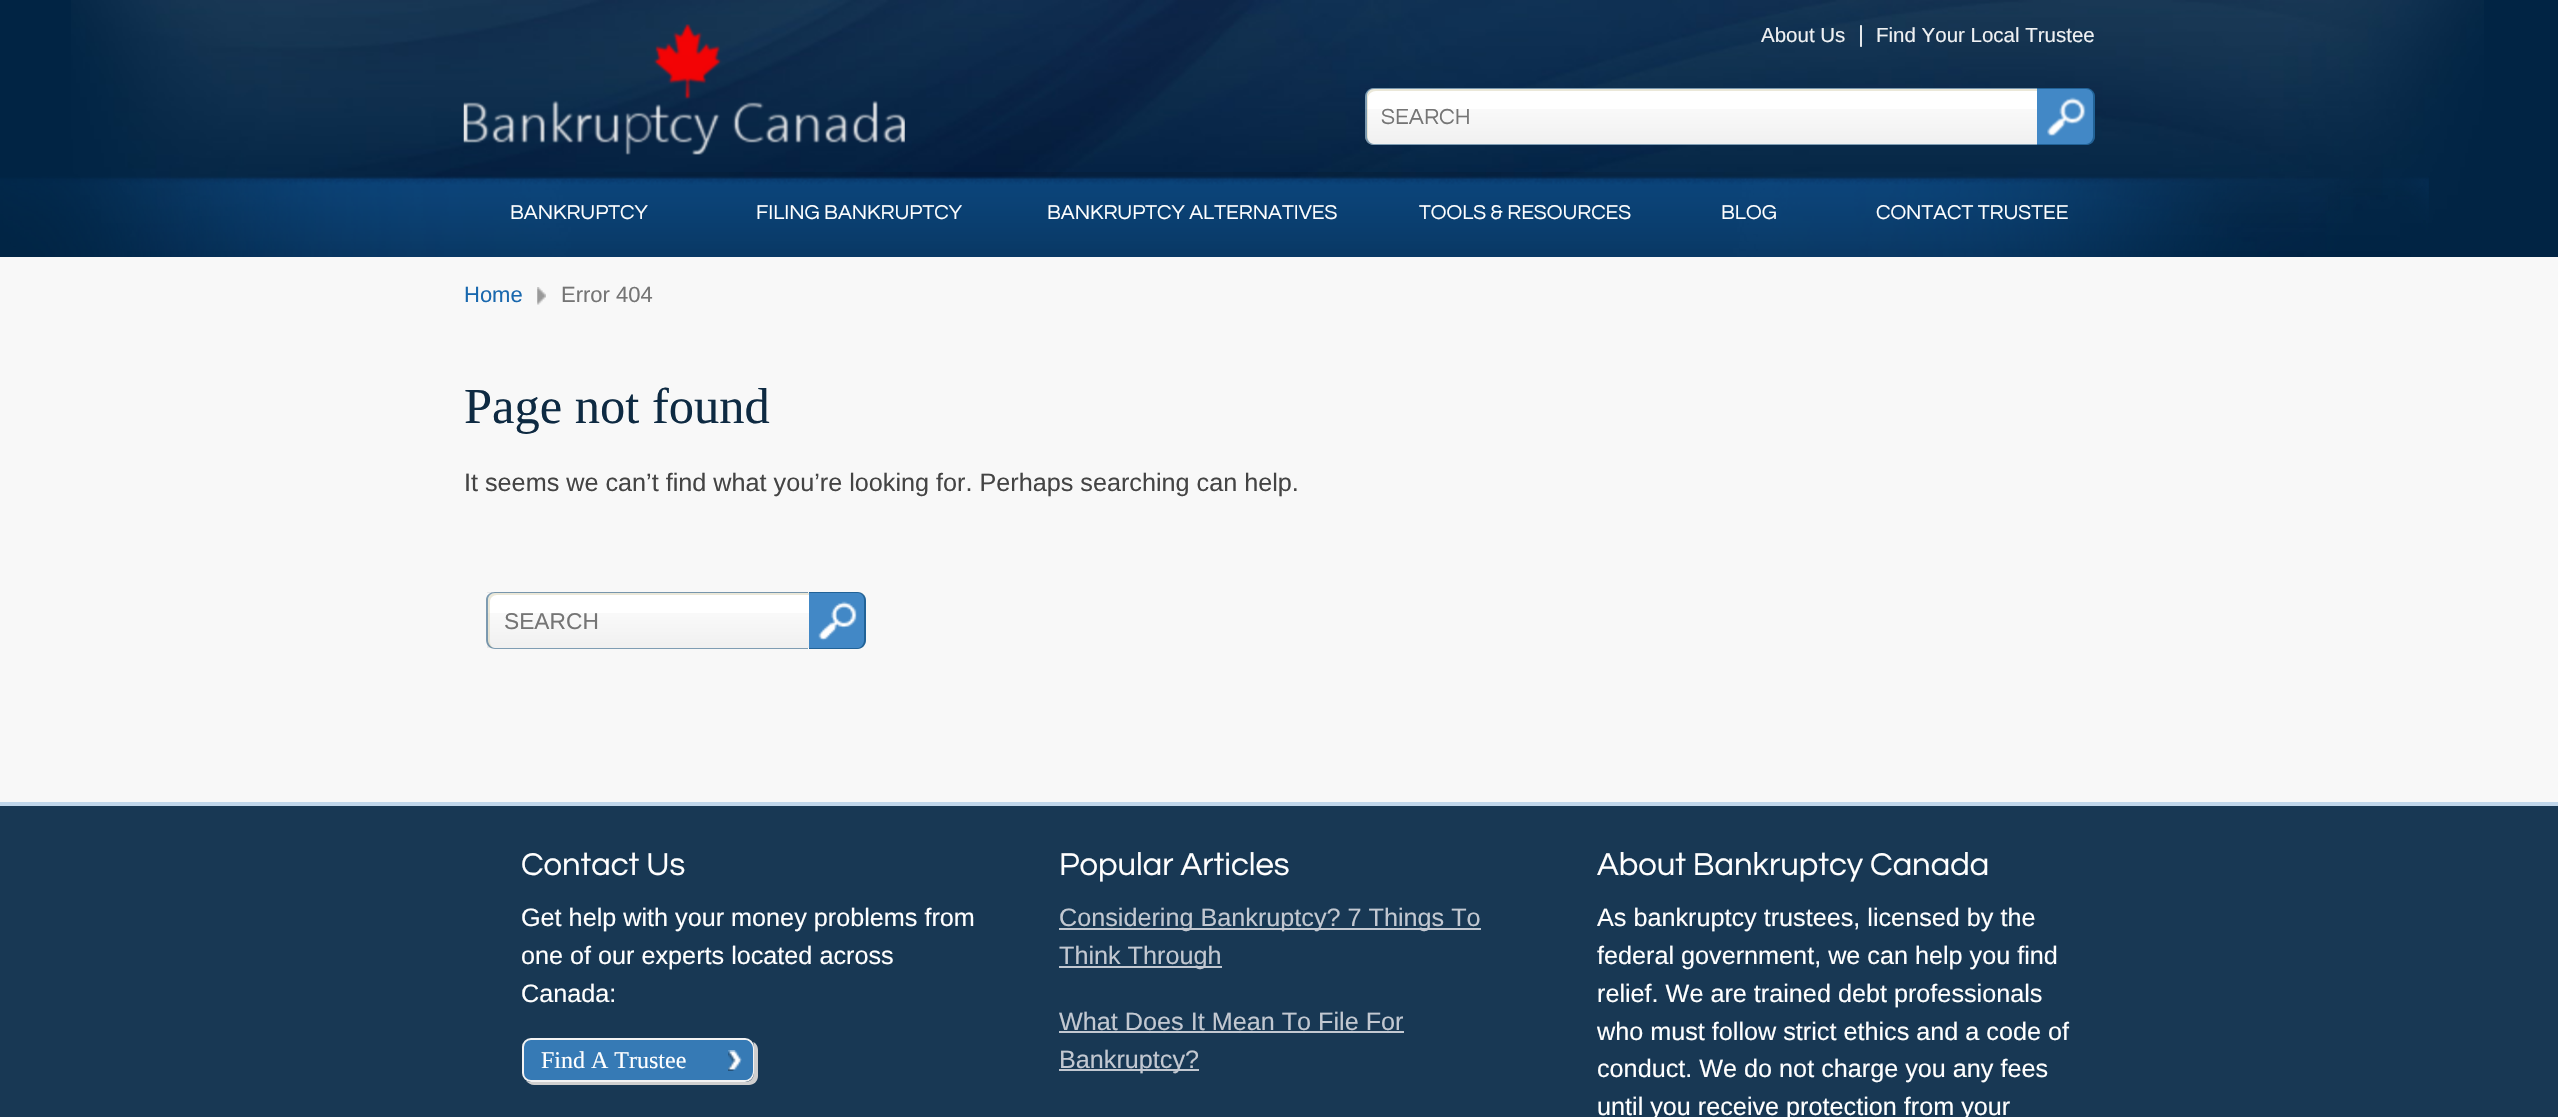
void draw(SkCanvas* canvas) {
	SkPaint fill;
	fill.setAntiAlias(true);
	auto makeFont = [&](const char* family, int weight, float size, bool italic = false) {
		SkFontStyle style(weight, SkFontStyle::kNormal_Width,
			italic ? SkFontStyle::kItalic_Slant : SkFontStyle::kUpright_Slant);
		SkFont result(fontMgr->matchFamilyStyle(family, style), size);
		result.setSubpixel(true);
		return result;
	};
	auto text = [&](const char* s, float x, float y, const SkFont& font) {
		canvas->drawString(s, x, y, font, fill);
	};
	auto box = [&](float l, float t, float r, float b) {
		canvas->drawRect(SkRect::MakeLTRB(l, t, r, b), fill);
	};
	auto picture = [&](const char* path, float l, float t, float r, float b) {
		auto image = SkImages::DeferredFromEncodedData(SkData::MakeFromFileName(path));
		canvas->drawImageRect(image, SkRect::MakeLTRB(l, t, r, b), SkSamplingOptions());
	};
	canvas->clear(0xFFF8F8F8);
	fill.setColor(0xFF012444);
	box(0, 0, 2558, 257);
	picture("image0.png", 71, 0, 2484, 257);
	picture("image1.png", 463, 24, 905, 155);
	fill.setColor(0xFFFFFFFF);
	canvas->drawPath(SkPathBuilder().moveTo(1374, 88).lineTo(2037, 88).lineTo(2037, 145).lineTo(1374, 145).cubicTo(1369, 145, 1365, 141, 1365, 136).lineTo(1365, 97).cubicTo(1365, 92, 1369, 88, 1374, 88).close().detach(), fill);
	{
		const SkColor colors[] = {0x00000000, 0x0F000000};
		const float stops[] = {0, 1};
		const SkPoint ends[] = {{1702, 35}, {1702, 89}};
		fill.setShader(SkGradientShader::MakeLinear(ends, colors, stops, 2, SkTileMode::kClamp));
		fill.setAlpha(255);
	}
	box(1365, 88, 2037, 89);
	{
		const SkColor colors[] = {0x00000000, 0x0F000000};
		const float stops[] = {0, 1};
		const SkPoint ends[] = {{1702, 89}, {1702, 144}};
		fill.setShader(SkGradientShader::MakeLinear(ends, colors, stops, 2, SkTileMode::kClamp));
		fill.setAlpha(255);
	}
	box(1365, 109, 2037, 144);
	fill.setShader(nullptr);
	fill.setColor(0x8CDAD6BA);
	canvas->drawPath(SkPathBuilder().moveTo(1376, 91).lineTo(2037, 91).lineTo(2037, 89).lineTo(1374, 89).cubicTo(1370, 89, 1367, 92, 1367, 96).lineTo(1367, 137).cubicTo(1367, 140, 1369, 142, 1371, 143).cubicTo(1369, 142, 1368, 140, 1368, 138).lineTo(1368, 98).cubicTo(1368, 94, 1372, 91, 1376, 91).close().detach(), fill);
	fill.setColor(0x80003B67);
	canvas->drawPath(SkPathBuilder(SkPathFillType::kEvenOdd).moveTo(1374, 88).lineTo(2037, 88).lineTo(2037, 145).lineTo(1374, 145).cubicTo(1369, 145, 1365, 141, 1365, 136).lineTo(1365, 96).cubicTo(1365, 91, 1369, 88, 1374, 88).close().moveTo(1374, 89).lineTo(2037, 89).lineTo(2037, 144).lineTo(1374, 144).cubicTo(1370, 144, 1367, 140, 1367, 136).lineTo(1367, 96).cubicTo(1367, 92, 1370, 89, 1374, 89).close().detach(), fill);
	fill.setColor(0xFF4288C6);
	canvas->drawPath(SkPathBuilder().moveTo(2037, 88).lineTo(2086, 88).cubicTo(2091, 88, 2095, 92, 2095, 97).lineTo(2095, 136).cubicTo(2095, 141, 2091, 145, 2086, 145).lineTo(2037, 145).close().detach(), fill);
	fill.setColor(0x80003B67);
	canvas->drawPath(SkPathBuilder(SkPathFillType::kEvenOdd).moveTo(2037, 88).lineTo(2086, 88).cubicTo(2091, 88, 2095, 91, 2095, 96).lineTo(2095, 136).cubicTo(2095, 141, 2091, 145, 2086, 145).lineTo(2037, 145).close().moveTo(2037, 89).lineTo(2086, 89).cubicTo(2090, 89, 2093, 92, 2093, 96).lineTo(2093, 136).cubicTo(2093, 140, 2090, 144, 2086, 144).lineTo(2037, 144).close().detach(), fill);
	picture("image2.png", 2047, 97, 2086, 137);
	picture("image3.png", 0, 172, 2429, 257);
	picture("image4.png", 537, 287, 546, 305);
	fill.setColor(0xFF4288C6);
	canvas->drawPath(SkPathBuilder().moveTo(809, 592).lineTo(857, 592).cubicTo(862, 592, 866, 596, 866, 601).lineTo(866, 640).cubicTo(866, 645, 862, 649, 857, 649).lineTo(809, 649).close().detach(), fill);
	fill.setColor(0x80003B67);
	canvas->drawPath(SkPathBuilder(SkPathFillType::kEvenOdd).moveTo(808, 592).lineTo(858, 592).cubicTo(862, 592, 866, 595, 866, 600).lineTo(866, 640).cubicTo(866, 645, 862, 649, 858, 649).lineTo(808, 649).close().moveTo(808, 593).lineTo(858, 593).cubicTo(861, 593, 864, 596, 864, 600).lineTo(864, 640).cubicTo(864, 644, 861, 648, 858, 648).lineTo(808, 648).close().detach(), fill);
	fill.setColor(0xFFFFFFFF);
	canvas->drawPath(SkPathBuilder().moveTo(496, 592).lineTo(809, 592).lineTo(809, 649).lineTo(496, 649).cubicTo(491, 649, 487, 645, 487, 640).lineTo(487, 601).cubicTo(487, 596, 491, 592, 496, 592).close().detach(), fill);
	{
		const SkColor colors[] = {0x00000000, 0x0F000000};
		const float stops[] = {0, 1};
		const SkPoint ends[] = {{648, 539}, {648, 593}};
		fill.setShader(SkGradientShader::MakeLinear(ends, colors, stops, 2, SkTileMode::kClamp));
		fill.setAlpha(255);
	}
	box(487, 592, 809, 593);
	{
		const SkColor colors[] = {0x00000000, 0x0F000000};
		const float stops[] = {0, 1};
		const SkPoint ends[] = {{648, 593}, {648, 648}};
		fill.setShader(SkGradientShader::MakeLinear(ends, colors, stops, 2, SkTileMode::kClamp));
		fill.setAlpha(255);
	}
	box(487, 613, 809, 648);
	fill.setShader(nullptr);
	fill.setColor(0x8CDAD6BA);
	canvas->drawPath(SkPathBuilder().moveTo(497, 595).lineTo(809, 595).lineTo(809, 593).lineTo(495, 593).cubicTo(491, 593, 488, 596, 488, 600).lineTo(488, 641).cubicTo(488, 644, 490, 647, 493, 648).cubicTo(491, 646, 490, 644, 490, 642).lineTo(490, 602).cubicTo(490, 598, 493, 595, 497, 595).close().detach(), fill);
	fill.setColor(0x80003B67);
	canvas->drawPath(SkPathBuilder(SkPathFillType::kEvenOdd).moveTo(495, 592).lineTo(808, 592).lineTo(808, 649).lineTo(495, 649).cubicTo(490, 649, 486, 645, 486, 640).lineTo(486, 600).cubicTo(486, 595, 490, 592, 495, 592).close().moveTo(495, 593).lineTo(808, 593).lineTo(808, 648).lineTo(495, 648).cubicTo(491, 648, 488, 644, 488, 640).lineTo(488, 600).cubicTo(488, 596, 491, 593, 495, 593).close().detach(), fill);
	picture("image5.png", 818, 601, 857, 641);
	fill.setColor(0xFF183854);
	box(0, 806, 2558, 1117);
	fill.setColor(0xFFC0D6EA);
	box(0, 802, 2558, 806);
	fill.setColor(0xFFCFCFCF);
	canvas->drawPath(SkPathBuilder().moveTo(526, 1081).cubicTo(528, 1083, 531, 1085, 534, 1085).lineTo(749, 1085).cubicTo(754, 1085, 758, 1081, 758, 1076).lineTo(758, 1050).cubicTo(758, 1046, 756, 1043, 753, 1042).cubicTo(754, 1043, 754, 1045, 754, 1046).lineTo(754, 1073).cubicTo(754, 1078, 750, 1082, 746, 1082).lineTo(530, 1082).close().detach(), fill);
	fill.setColor(0xFF367AB5);
	canvas->drawRoundRect(SkRect::MakeLTRB(523, 1039, 753, 1081), 8, 8, fill);
	fill.setStyle(SkPaint::kStroke_Style);
	fill.setStrokeWidth(2);
	fill.setColor(0xFFF3F3F3);
	canvas->drawRoundRect(SkRect::MakeLTRB(523, 1039, 753, 1081), 8, 8, fill);
	fill.setStyle(SkPaint::kFill_Style);
	fill.setColor(0xFF367AB5);
	canvas->drawPath(SkPathBuilder().moveTo(698, 1040).lineTo(744, 1040).cubicTo(749, 1040, 753, 1044, 753, 1049).lineTo(753, 1071).cubicTo(753, 1076, 749, 1080, 744, 1080).lineTo(698, 1080).close().detach(), fill);
	picture("image6.png", 728, 1050, 742, 1071);
	fill.setColor(0xFFC2C8D1);
	box(1059, 928, 1481, 930);
	box(1059, 966, 1222, 968);
	box(1059, 1031, 1404, 1033);
	box(1059, 1069, 1199, 1071);
	auto font1 = makeFont("Liberation Sans", 400, 20.5f);
	fill.setColor(0xFFEFF1F3);
	text("About Us", 1761, 42, font1);
	auto font2 = makeFont("Liberation Sans", 400, 23);
	text("|", 1858, 42, font2);
	text("Find Your Local Trustee", 1876, 42, font1);
	auto font3 = makeFont("Questrial", 400, 22.75f);
	fill.setColor(0xFF757575);
	text("SEARCH", 1381, 124, font3);
	auto font4 = makeFont("Questrial", 400, 20.9f);
	fill.setColor(0xFFFFFFFF);
	text("BANKRUPTCY", 510, 219, font4);
	text("FILING BANKRUPTCY", 756, 219, font4);
	text("BANKRUPTCY ALTERNATIVES", 1047, 219, font4);
	text("TOOLS & RESOURCES", 1419, 219, font4);
	text("BLOG", 1721, 219, font4);
	text("CONTACT TRUSTEE", 1876, 219, font4);
	auto font5 = makeFont("Liberation Sans", 400, 22);
	fill.setColor(0xFF1968AE);
	text("Home", 464, 302, font5);
	fill.setColor(0xFF757575);
	text("Error 404", 561, 302, font5);
	auto font6 = makeFont("Liberation Serif", 400, 50.5f);
	fill.setColor(0xFF0E2A42);
	text("Page not found", 464, 423, font6);
	auto font7 = makeFont("Liberation Sans", 400, 25.2f);
	fill.setColor(0xFF444444);
	text("It seems we can’t find what you’re looking for. Perhaps searching can help.", 464, 491, font7);
	auto font8 = makeFont("Liberation Sans", 400, 22.75f);
	fill.setColor(0xFF757575);
	text("SEARCH", 504, 629, font8);
	auto font9 = makeFont("Questrial", 400, 32.75f);
	fill.setColor(0xFFFFFFFF);
	text("Contact Us", 521, 875, font9);
	text("Get help with your money problems from", 521, 926, font7);
	text("one of our experts located across", 521, 964, font7);
	text("Canada:", 521, 1002, font7);
	auto font10 = makeFont("Liberation Serif", 400, 24);
	text("Find A Trustee", 541, 1068, font10);
	text("Popular Articles", 1059, 875, font9);
	fill.setColor(0xFFC2C8D1);
	text("Considering Bankruptcy? 7 Things To", 1059, 926, font7);
	text("Think Through", 1059, 964, font7);
	text("What Does It Mean To File For", 1059, 1030, font7);
	text("Bankruptcy?", 1059, 1068, font7);
	fill.setColor(0xFFFFFFFF);
	text("About Bankruptcy Canada", 1597, 875, font9);
	text("As bankruptcy trustees, licensed by the", 1597, 926, font7);
	text("federal government, we can help you find", 1597, 964, font7);
	text("relief. We are trained debt professionals", 1597, 1002, font7);
	text("who must follow strict ethics and a code of", 1597, 1040, font7);
	text("conduct. We do not charge you any fees", 1597, 1077, font7);
	text("until you receive protection from your", 1597, 1115, font7);
}
